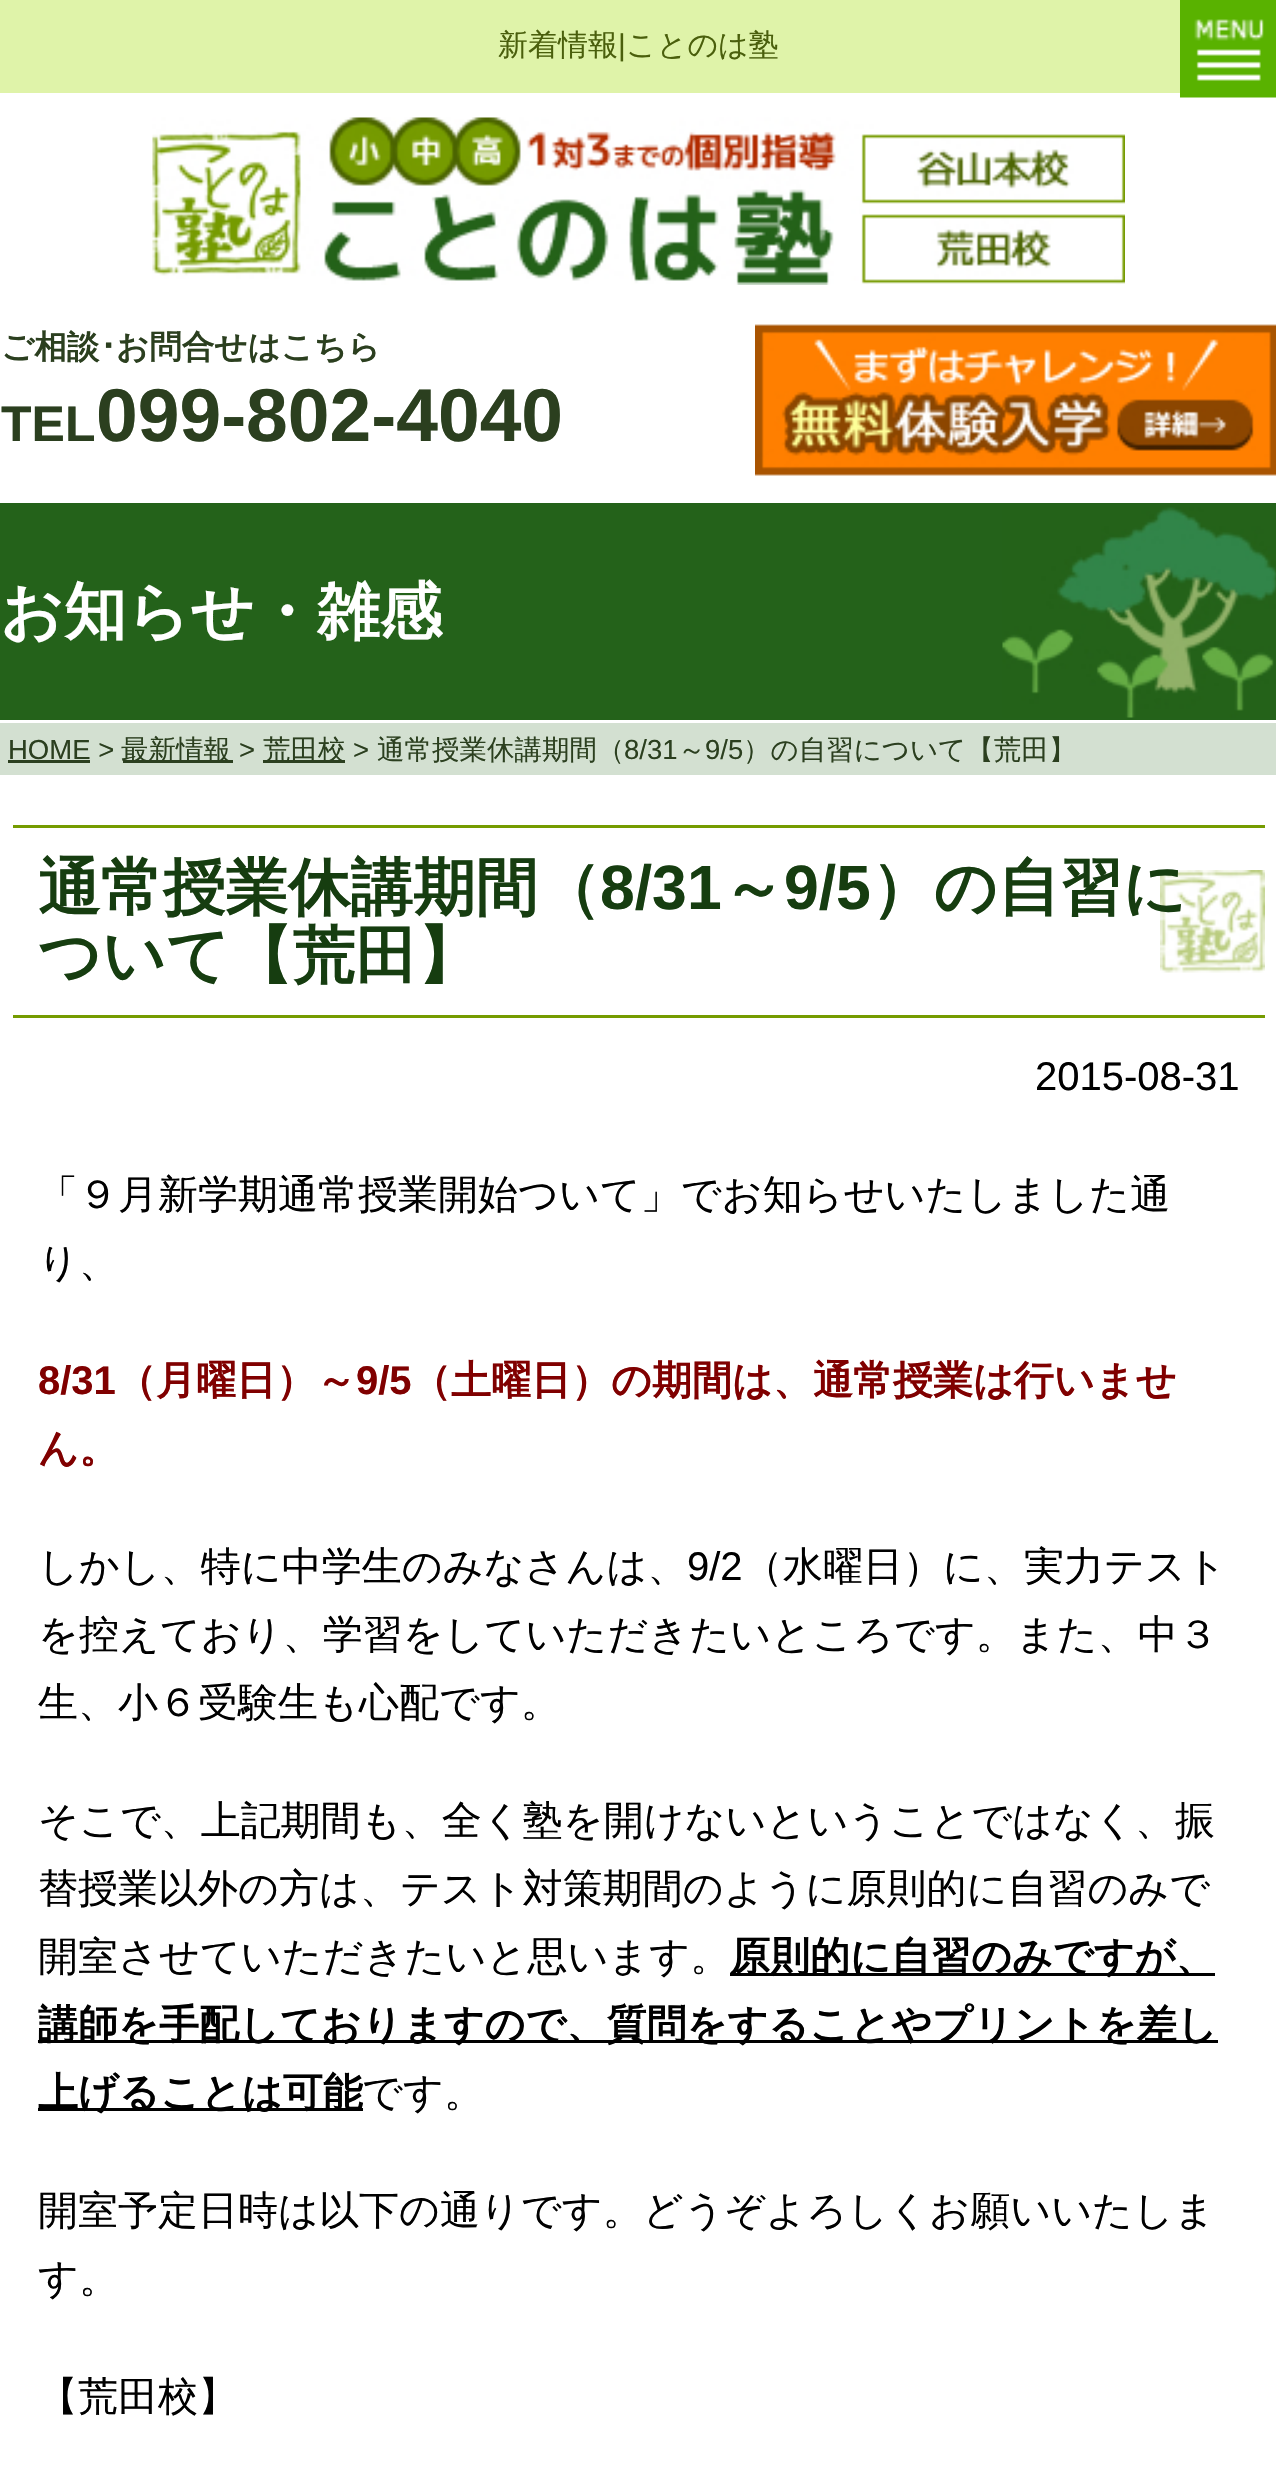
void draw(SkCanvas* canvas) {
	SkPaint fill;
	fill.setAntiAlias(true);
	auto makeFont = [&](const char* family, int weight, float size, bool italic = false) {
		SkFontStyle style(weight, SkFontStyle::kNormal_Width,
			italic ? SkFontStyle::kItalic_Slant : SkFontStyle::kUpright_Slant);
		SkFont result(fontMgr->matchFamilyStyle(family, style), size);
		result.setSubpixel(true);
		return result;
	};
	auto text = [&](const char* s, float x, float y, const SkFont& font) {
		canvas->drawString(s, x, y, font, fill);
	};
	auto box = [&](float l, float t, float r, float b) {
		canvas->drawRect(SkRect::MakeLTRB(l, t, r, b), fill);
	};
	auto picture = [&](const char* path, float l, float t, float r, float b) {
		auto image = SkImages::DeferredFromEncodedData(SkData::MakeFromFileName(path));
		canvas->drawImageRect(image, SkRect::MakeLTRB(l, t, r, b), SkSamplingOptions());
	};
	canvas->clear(0xFFFFFFFF);
	fill.setColor(0xFFDFF3A9);
	box(0, 0, 1180, 93);
	picture("image0.png", 1180, 0, 1276, 98);
	picture("image1.png", 152, 117, 1125, 285);
	picture("image2.png", 755, 324, 1276, 476);
	fill.setColor(0xFF24621A);
	box(0, 503, 1276, 720);
	picture("image3.png", 1002, 507, 1276, 718);
	fill.setColor(0xFFD3E0D1);
	box(0, 723, 1276, 775);
	fill.setColor(0xFF2B3F1F);
	box(8, 760, 90, 763);
	box(123, 760, 233, 763);
	box(263, 760, 345, 763);
	picture("image4.png", 1160, 870, 1265, 973);
	fill.setColor(0xFF759B00);
	box(13, 825, 1265, 828);
	box(13, 1015, 1265, 1018);
	fill.setColor(0xFF000000);
	box(730, 1973, 1215, 1976);
	box(38, 2040, 1218, 2043);
	box(38, 2108, 363, 2111);
	auto font1 = makeFont("WenQuanYi Zen Hei", 500, 30);
	fill.setColor(0xFF4A5F0C);
	text("新着情報", 498, 55, font1);
	auto font2 = makeFont("Liberation Sans", 400, 30);
	text("|", 618, 55, font2);
	text("ことのは塾", 626, 55, font1);
	auto font3 = makeFont("WenQuanYi Zen Hei", 700, 32.5f);
	fill.setColor(0xFF2B3F1F);
	text("ご相談", 1, 358, font3);
	auto font4 = makeFont("IPAPGothic", 700, 32.5f);
	text("･", 100, 358, font4);
	text("お問合せはこちら", 116, 358, font3);
	auto font5 = makeFont("Liberation Sans", 700, 50);
	text("TEL", 1, 441, font5);
	auto font6 = makeFont("Liberation Sans", 700, 75);
	text("099-802-4040", 96, 441, font6);
	auto font7 = makeFont("WenQuanYi Zen Hei", 700, 62.5f);
	fill.setColor(0xFFFFFFFF);
	text("お知らせ・雑感", 0, 633, font7);
	auto font8 = makeFont("Liberation Sans", 400, 27.5f);
	fill.setColor(0xFF2B3F1F);
	text("HOME >", 8, 759, font8);
	auto font9 = makeFont("WenQuanYi Zen Hei", 500, 27.5f);
	text("最新情報", 121, 759, font9);
	text(">", 239, 759, font8);
	text("荒田校", 263, 759, font9);
	text(">", 353, 759, font8);
	text("通常授業休講期間（", 377, 759, font9);
	text("8/31", 624, 759, font8);
	text("～", 678, 759, font9);
	text("9/5", 705, 759, font8);
	text("）の自習について【荒田】", 743, 759, font9);
	fill.setColor(0xFF163D10);
	text("通常授業休講期間（", 38, 909, font7);
	auto font10 = makeFont("Liberation Sans", 700, 62.5f);
	text("8/31", 600, 909, font10);
	text("～", 722, 909, font7);
	text("9/5", 784, 909, font10);
	text("）の自習に", 871, 909, font7);
	text("ついて【荒田】", 38, 977, font7);
	auto font11 = makeFont("Liberation Sans", 400, 40);
	fill.setColor(0xFF000000);
	text("2015-08-31", 1035, 1090, font11);
	auto font12 = makeFont("WenQuanYi Zen Hei", 500, 40);
	text("「９月新学期通常授業開始ついて」でお知らせいたしました通", 38, 1208, font12);
	text("り、", 38, 1276, font12);
	auto font13 = makeFont("Liberation Sans", 700, 40);
	fill.setColor(0xFF800000);
	text("8/31", 38, 1394, font13);
	auto font14 = makeFont("WenQuanYi Zen Hei", 700, 40);
	text("（月曜日）～", 116, 1394, font14);
	text("9/5", 356, 1394, font13);
	text("（土曜日）の期間は、通常授業は行いませ", 411, 1394, font14);
	text("ん。", 38, 1462, font14);
	fill.setColor(0xFF000000);
	text("しかし、特に中学生のみなさんは、", 38, 1580, font12);
	text("9/2", 687, 1580, font11);
	text("（水曜日）に、実力テスト", 743, 1580, font12);
	text("を控えており、学習をしていただきたいところです。また、中３", 38, 1648, font12);
	text("生、小６受験生も心配です。", 38, 1716, font12);
	text("そこで、上記期間も、全く塾を開けないということではなく、振", 38, 1834, font12);
	text("替授業以外の方は、テスト対策期間のように原則的に自習のみで", 38, 1902, font12);
	text("開室させていただきたいと思います。", 38, 1970, font12);
	text("原則的に自習のみですが、", 730, 1970, font14);
	text("講師を手配しておりますので、質問をすることやプリントを差し", 38, 2038, font14);
	text("上げることは可能", 38, 2106, font14);
	text("です。", 362, 2106, font12);
	text("開室予定日時は以下の通りです。どうぞよろしくお願いいたしま", 38, 2224, font12);
	text("す。", 38, 2292, font12);
	text("【荒田校】", 38, 2410, font12);
}
